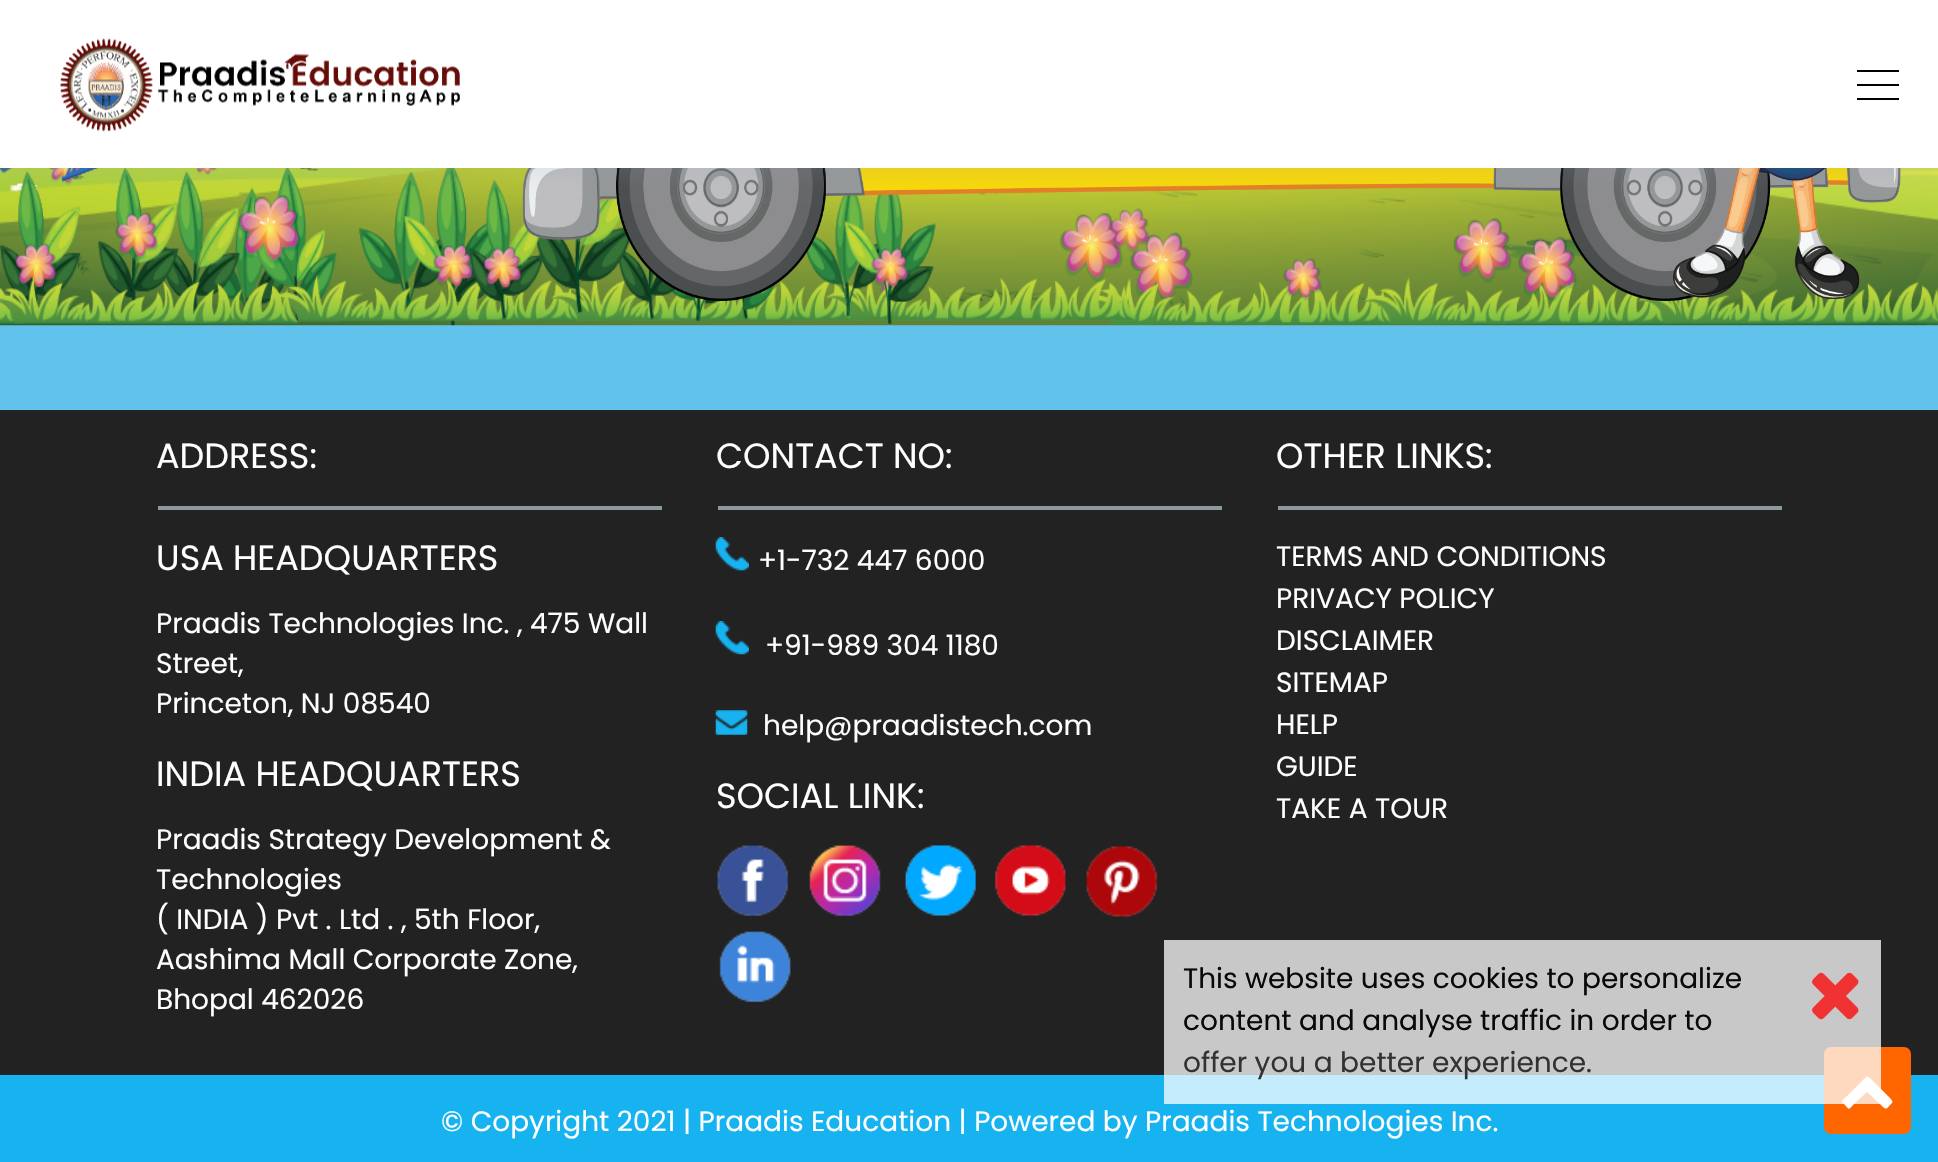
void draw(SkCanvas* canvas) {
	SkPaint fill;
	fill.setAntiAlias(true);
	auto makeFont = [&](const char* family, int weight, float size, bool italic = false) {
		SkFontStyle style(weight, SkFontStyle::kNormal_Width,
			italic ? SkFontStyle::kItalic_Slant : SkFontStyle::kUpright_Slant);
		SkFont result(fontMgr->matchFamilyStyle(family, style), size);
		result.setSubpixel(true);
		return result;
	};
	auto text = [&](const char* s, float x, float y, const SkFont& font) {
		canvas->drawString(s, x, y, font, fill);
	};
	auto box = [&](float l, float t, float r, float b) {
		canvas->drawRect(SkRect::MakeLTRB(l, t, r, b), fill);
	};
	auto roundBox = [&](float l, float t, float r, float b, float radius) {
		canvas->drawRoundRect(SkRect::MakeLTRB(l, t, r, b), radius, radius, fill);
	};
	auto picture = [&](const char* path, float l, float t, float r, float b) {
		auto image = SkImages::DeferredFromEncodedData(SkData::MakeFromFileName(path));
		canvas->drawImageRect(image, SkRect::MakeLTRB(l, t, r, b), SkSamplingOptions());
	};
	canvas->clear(0xFF61C3EC);
	picture("image1.png", 0, 168, 1938, 326);
	picture("image2.png", 522, 168, 1901, 301);
	fill.setColor(0x268A9BA5);
	fill.setMaskFilter(SkMaskFilter::MakeBlur(kNormal_SkBlurStyle, 9));
	canvas->drawRect(SkRect::MakeLTRB(0, 9, 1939, 177), fill);
	fill.setMaskFilter(nullptr);
	fill.setColor(0xFFFFFFFF);
	box(0, 0, 1938, 168);
	picture("image0.png", 60, 38, 460, 132);
	fill.setColor(0xFF000000);
	box(1857, 98, 1899, 100);
	box(1857, 70, 1899, 72);
	box(1857, 84, 1899, 86);
	fill.setColor(0xFF222222);
	box(0, 410, 1938, 1075);
	fill.setColor(0xFF8B999E);
	box(158, 506, 662, 510);
	box(718, 506, 1222, 510);
	picture("image3.png", 715, 537, 749, 571);
	picture("image3.png", 715, 621, 749, 655);
	picture("image4.png", 715, 710, 748, 735);
	picture("image5.png", 717, 845, 789, 917);
	picture("image6.png", 809, 845, 881, 917);
	picture("image7.png", 905, 845, 976, 916);
	picture("image8.png", 994, 845, 1066, 916);
	picture("image9.png", 1086, 846, 1158, 917);
	picture("image10.png", 719, 931, 791, 1003);
	box(1278, 506, 1782, 510);
	fill.setColor(0xFF17B3F1);
	box(0, 1075, 1938, 1162);
	fill.setColor(0xFFFF6600);
	roundBox(1824, 1047, 1911, 1134, 7);
	fill.setColor(0xFFFFFFFF);
	canvas->drawPath(SkPathBuilder().moveTo(1892, 1103).cubicTo(1886, 1109, 1887, 1111, 1881, 1105).lineTo(1867, 1092).lineTo(1853, 1105).cubicTo(1848, 1111, 1849, 1109, 1844, 1104).cubicTo(1840, 1101, 1843, 1100, 1847, 1096).lineTo(1862, 1081).cubicTo(1868, 1075, 1867, 1075, 1873, 1081).lineTo(1888, 1096).cubicTo(1889, 1097, 1894, 1101, 1892, 1103).close().detach(), fill);
	fill.setColor(0xBFFFFFFF);
	box(1164, 940, 1881, 1104);
	picture("image11.png", 1812, 972, 1859, 1020);
	auto font1 = makeFont("Poppins", 400, 35);
	fill.setColor(0xFFFFFFFF);
	text("ADDRESS:", 156, 468, font1);
	text("USA HEADQUARTERS", 156, 570, font1);
	auto font2 = makeFont("Poppins", 400, 28);
	text("Praadis Technologies Inc. , 475 Wall", 156, 633, font2);
	text("Street,", 156, 673, font2);
	text("Princeton, NJ 08540", 156, 713, font2);
	text("INDIA HEADQUARTERS", 156, 786, font1);
	text("Praadis Strategy Development &", 156, 849, font2);
	text("Technologies", 156, 889, font2);
	text("( INDIA ) Pvt . Ltd . , 5th Floor,", 156, 929, font2);
	text("Aashima Mall Corporate Zone,", 156, 969, font2);
	text("Bhopal 462026", 156, 1009, font2);
	text("CONTACT NO:", 716, 468, font1);
	text("+1-732 447 6000", 758, 570, font2);
	text("+91-989 304 1180", 765, 655, font2);
	text("help@praadistech.com", 763, 735, font2);
	text("SOCIAL LINK:", 716, 808, font1);
	text("OTHER LINKS:", 1276, 468, font1);
	text("TERMS AND CONDITIONS", 1276, 566, font2);
	text("PRIVACY POLICY", 1276, 608, font2);
	text("DISCLAIMER", 1276, 650, font2);
	text("SITEMAP", 1276, 692, font2);
	text("HELP", 1276, 734, font2);
	text("GUIDE", 1276, 776, font2);
	text("TAKE A TOUR", 1276, 818, font2);
	text("© Copyright 2021 | Praadis Education | Powered by Praadis Technologies Inc.", 441, 1131, font2);
	fill.setColor(0xFF090909);
	text("This website uses cookies to personalize", 1183, 988, font2);
	text("content and analyse traffic in order to", 1183, 1030, font2);
	fill.setColor(0xFF323232);
	text("offer you a better experience.", 1183, 1072, font2);
}
